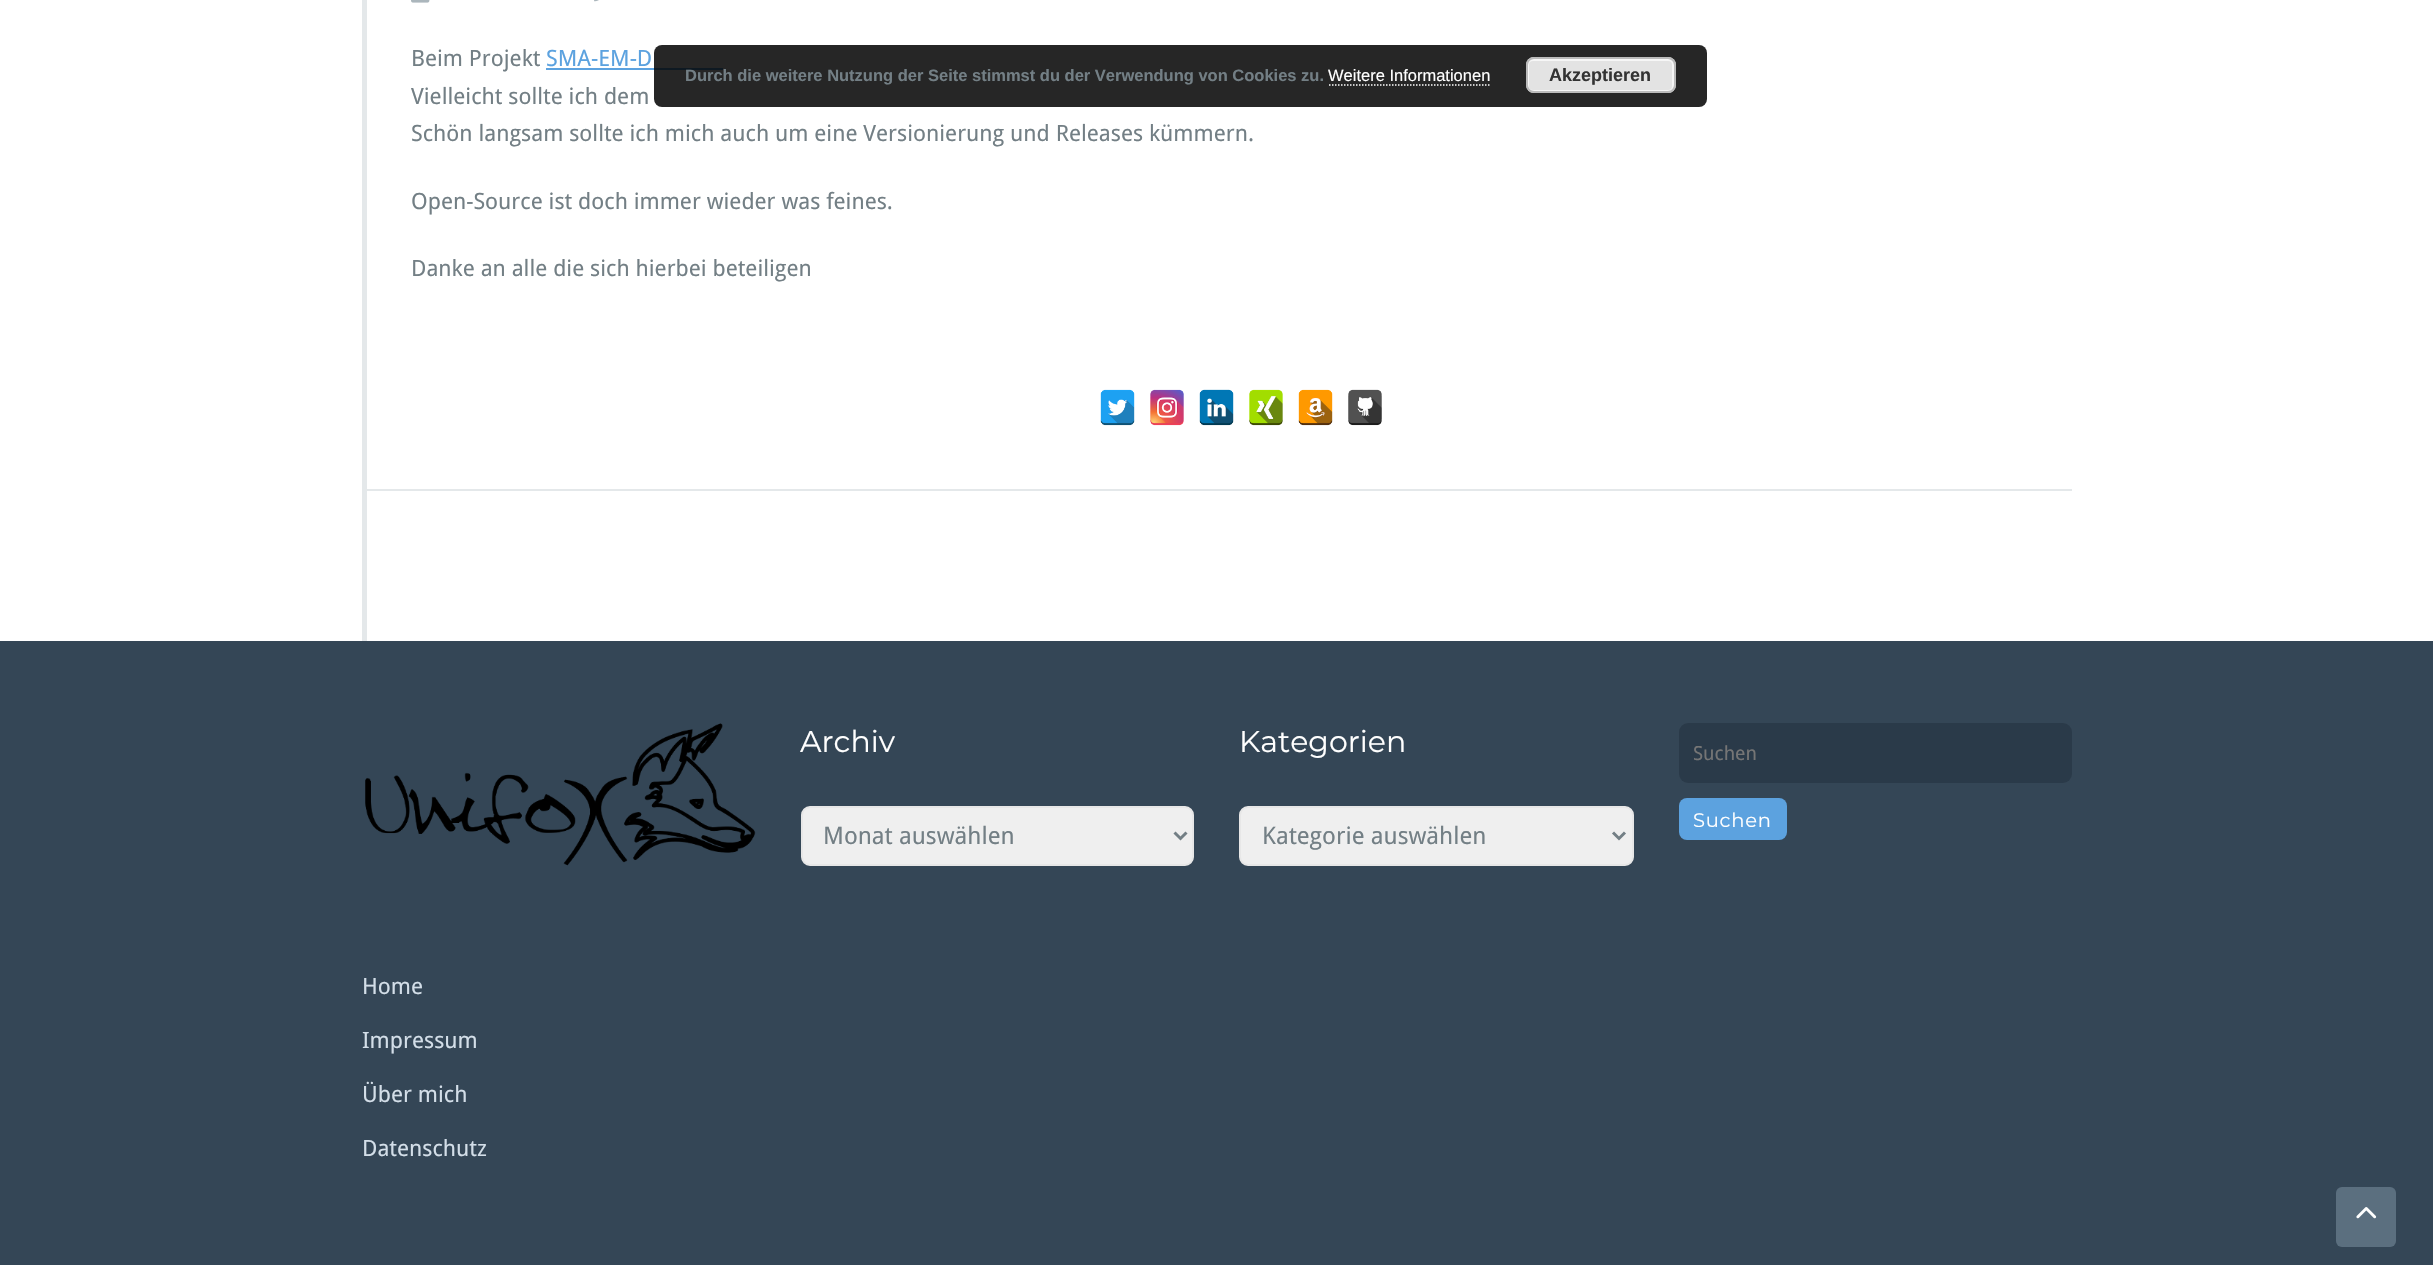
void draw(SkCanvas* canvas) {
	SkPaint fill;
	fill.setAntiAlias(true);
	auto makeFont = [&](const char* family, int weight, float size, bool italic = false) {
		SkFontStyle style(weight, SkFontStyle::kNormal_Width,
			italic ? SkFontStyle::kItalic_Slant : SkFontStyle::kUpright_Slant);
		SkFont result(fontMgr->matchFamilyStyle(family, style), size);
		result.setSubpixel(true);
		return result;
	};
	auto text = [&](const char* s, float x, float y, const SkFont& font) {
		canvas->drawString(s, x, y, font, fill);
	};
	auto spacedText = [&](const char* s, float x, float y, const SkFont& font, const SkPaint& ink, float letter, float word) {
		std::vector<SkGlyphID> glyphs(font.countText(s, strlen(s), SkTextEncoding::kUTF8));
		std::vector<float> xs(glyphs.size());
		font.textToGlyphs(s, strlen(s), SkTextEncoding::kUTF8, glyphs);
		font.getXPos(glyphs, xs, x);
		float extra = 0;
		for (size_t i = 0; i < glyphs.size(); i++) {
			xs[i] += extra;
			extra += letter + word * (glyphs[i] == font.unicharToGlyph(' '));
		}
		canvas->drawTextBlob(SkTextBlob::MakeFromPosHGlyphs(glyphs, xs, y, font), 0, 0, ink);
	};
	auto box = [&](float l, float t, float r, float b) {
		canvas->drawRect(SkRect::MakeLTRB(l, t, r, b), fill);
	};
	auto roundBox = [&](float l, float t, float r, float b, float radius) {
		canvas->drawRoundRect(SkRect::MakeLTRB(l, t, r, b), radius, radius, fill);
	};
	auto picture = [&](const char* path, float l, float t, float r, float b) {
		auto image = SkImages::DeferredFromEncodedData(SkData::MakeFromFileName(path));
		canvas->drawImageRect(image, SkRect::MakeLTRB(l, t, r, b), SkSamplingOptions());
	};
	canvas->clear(0xFFFFFFFF);
	fill.setColor(0xFFE4E8EA);
	box(362, 0, 367, 641);
	box(366, 489, 2072, 491);
	picture("image0.png", 411, 0, 430, 3);
	picture("image1.png", 594, 0, 599, 2);
	fill.setColor(0xFF5CA2DF);
	box(546, 68, 723, 70);
	picture("image2.png", 1100, 389, 1135, 426);
	picture("image3.png", 1150, 389, 1184, 426);
	picture("image4.png", 1199, 389, 1234, 426);
	picture("image5.png", 1249, 389, 1283, 426);
	picture("image6.png", 1298, 389, 1333, 426);
	picture("image7.png", 1348, 389, 1382, 426);
	fill.setColor(0xFF344656);
	box(0, 641, 2433, 1265);
	picture("image8.png", 365, 723, 756, 866);
	fill.setColor(0xFFEFEFEF);
	canvas->drawRoundRect(SkRect::MakeLTRB(802, 807, 1193, 865), 8, 8, fill);
	fill.setStyle(SkPaint::kStroke_Style);
	fill.setStrokeWidth(2);
	fill.setColor(0xFFE7E7E7);
	canvas->drawRoundRect(SkRect::MakeLTRB(802, 807, 1193, 865), 8, 8, fill);
	fill.setStrokeWidth(3);
	fill.setColor(0xFF737F85);
	canvas->drawPath(SkPathBuilder().moveTo(1174.5f, 832.5f).lineTo(1180.5f, 838.5f).lineTo(1186.5f, 832.5f).detach(), fill);
	fill.setStyle(SkPaint::kFill_Style);
	fill.setColor(0xFFEFEFEF);
	canvas->drawRoundRect(SkRect::MakeLTRB(1240, 807, 1633, 865), 8, 8, fill);
	fill.setStyle(SkPaint::kStroke_Style);
	fill.setStrokeWidth(2);
	fill.setColor(0xFFE7E7E7);
	canvas->drawRoundRect(SkRect::MakeLTRB(1240, 807, 1633, 865), 8, 8, fill);
	fill.setStrokeWidth(3);
	fill.setColor(0xFF737F85);
	canvas->drawPath(SkPathBuilder().moveTo(1613, 832.5f).lineTo(1619, 838.5f).lineTo(1625, 832.5f).detach(), fill);
	fill.setStyle(SkPaint::kFill_Style);
	fill.setColor(0xFF2A3A49);
	roundBox(1679, 723, 2072, 783, 9);
	fill.setColor(0xFF5CA2DF);
	roundBox(1679, 798, 1787, 840, 8);
	fill.setColor(0xD9000000);
	roundBox(654, 45, 1707, 107, 8);
	fill.setStyle(SkPaint::kStroke_Style);
	fill.setStrokeWidth(1.5f);
	fill.setColor(0xFFFFFFFF);
	fill.setPathEffect(SkDashPathEffect::Make({{1.5f, 1.5f}}, 0));
	canvas->drawPath(SkPathBuilder().moveTo(1329, 85).lineTo(1491, 85).detach(), fill);
	fill.setPathEffect(nullptr);
	fill.setStyle(SkPaint::kFill_Style);
	fill.setColor(0xFFE3E3E3);
	roundBox(1526, 57, 1676, 93, 8);
	fill.setStyle(SkPaint::kStroke_Style);
	fill.setStrokeWidth(2);
	fill.setColor(0xFFF6F6F6);
	canvas->drawRoundRect(SkRect::MakeLTRB(1528, 60, 1673, 91), 5, 5, fill);
	fill.setColor(0xFFBBBBBB);
	canvas->drawRoundRect(SkRect::MakeLTRB(1527, 58, 1675, 92), 7, 7, fill);
	fill.setStyle(SkPaint::kFill_Style);
	fill.setColor(0xFF5B6F7F);
	roundBox(2336, 1187, 2396, 1247, 6);
	picture("image9.png", 2356, 1207, 2377, 1219);
	auto font1 = makeFont("Droid Sans", 400, 22.5f);
	fill.setColor(0xFF737F85);
	text("Beim Projekt", 411, 66, font1);
	fill.setColor(0xFF5CA2DF);
	text("SMA-EM-D", 546, 66, font1);
	fill.setColor(0xFF737F85);
	text("Vielleicht sollte ich dem", 411, 104, font1);
	text("Schön langsam sollte ich mich auch um eine Versionierung und Releases kümmern.", 411, 141, font1);
	text("Open-Source ist doch immer wieder was feines.", 411, 209, font1);
	text("Danke an alle die sich hierbei beteiligen", 411, 276, font1);
	auto font2 = makeFont("Montserrat", 400, 30);
	fill.setColor(0xFFFFFFFF);
	text("Archiv", 800, 752, font2);
	auto font3 = makeFont("Droid Sans", 400, 24);
	fill.setColor(0xFF737F85);
	text("Monat auswählen", 823, 844, font3);
	fill.setColor(0xFFFFFFFF);
	text("Kategorien", 1239, 752, font2);
	fill.setColor(0xFF737F85);
	text("Kategorie auswählen", 1262, 844, font3);
	auto font4 = makeFont("Droid Sans", 400, 19.5f);
	fill.setColor(0xFF757575);
	text("Suchen", 1693, 760, font4);
	auto font5 = makeFont("Montserrat", 400, 19.5f);
	fill.setColor(0xFFFFFFFF);
	spacedText("Suchen", 1693, 827, font5, fill, 0.75f, 0);
	fill.setColor(0xFFD3DEE8);
	text("Home", 362, 994, font1);
	text("Impressum", 362, 1048, font1);
	text("Über mich", 362, 1102, font1);
	text("Datenschutz", 362, 1156, font1);
	auto font6 = makeFont("Liberation Sans", 700, 16.5f);
	fill.setColor(0xFF737F85);
	text("Durch die weitere Nutzung der Seite stimmst du der Verwendung von Cookies zu.", 685, 81, font6);
	auto font7 = makeFont("Liberation Sans", 400, 16.5f);
	fill.setColor(0xFFFFFFFF);
	text("Weitere Informationen", 1328, 81, font7);
	auto font8 = makeFont("Liberation Sans", 700, 18);
	fill.setColor(0xFF333333);
	text("Akzeptieren", 1549, 81, font8);
}
